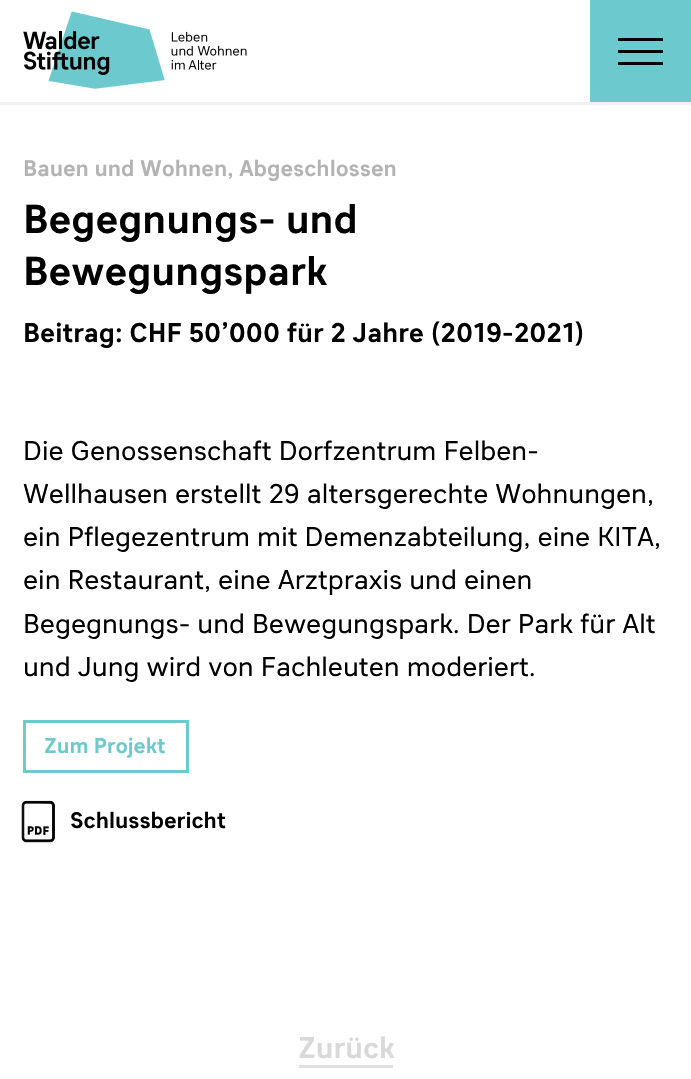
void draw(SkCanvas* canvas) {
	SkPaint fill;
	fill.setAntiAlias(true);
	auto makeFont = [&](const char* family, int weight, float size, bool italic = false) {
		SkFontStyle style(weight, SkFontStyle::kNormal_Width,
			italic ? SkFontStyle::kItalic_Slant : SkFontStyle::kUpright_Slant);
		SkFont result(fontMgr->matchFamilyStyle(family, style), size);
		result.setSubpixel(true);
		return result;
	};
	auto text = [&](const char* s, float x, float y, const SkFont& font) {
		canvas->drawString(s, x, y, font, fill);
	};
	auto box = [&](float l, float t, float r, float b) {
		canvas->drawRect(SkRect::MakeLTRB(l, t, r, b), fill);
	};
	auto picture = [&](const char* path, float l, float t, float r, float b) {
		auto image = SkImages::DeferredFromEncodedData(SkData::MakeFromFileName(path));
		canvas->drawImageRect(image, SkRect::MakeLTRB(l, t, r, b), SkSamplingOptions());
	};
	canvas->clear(0xFFFFFFFF);
	picture("image0.png", 23, 11, 247, 89);
	fill.setColor(0xFF6CC9CD);
	box(590, 0, 691, 102);
	fill.setColor(0xFF000000);
	box(618, 38, 663, 41);
	box(618, 50, 663, 53);
	box(618, 62, 663, 65);
	fill.setColor(0xFFF2F2F2);
	box(0, 102, 691, 105);
	fill.setStyle(SkPaint::kStroke_Style);
	fill.setStrokeWidth(3);
	fill.setColor(0xFF6CC9CD);
	canvas->drawRect(SkRect::MakeLTRB(24.5f, 721.5f, 187.5f, 771.5f), fill);
	picture("image1.png", 21, 800, 55, 843);
	fill.setStyle(SkPaint::kFill_Style);
	fill.setColor(0xFFE0E0E0);
	box(299, 1065, 393, 1068);
	auto font1 = makeFont("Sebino", 400, 22.5f);
	fill.setColor(0xFFB3B3B3);
	text("Bauen und Wohnen, Abgeschlossen", 23, 176, font1);
	auto font2 = makeFont("Sebino", 400, 40.5f);
	fill.setColor(0xFF000000);
	text("Begegnungs- und", 23, 233, font2);
	text("Bewegungspark", 23, 285, font2);
	auto font3 = makeFont("Sebino", 400, 27);
	text("Beitrag: CHF 50’000 für 2 Jahre (2019-2021)", 23, 342, font3);
	auto font4 = makeFont("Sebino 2", 400, 27);
	text("Die Genossenschaft Dorfzentrum Felben-", 23, 460, font4);
	text("Wellhausen erstellt 29 altersgerechte Wohnungen,", 23, 503, font4);
	text("ein Pflegezentrum mit Demenzabteilung, eine KITA,", 23, 546, font4);
	text("ein Restaurant, eine Arztpraxis und einen", 23, 589, font4);
	text("Begegnungs- und Bewegungspark. Der Park für Alt", 23, 633, font4);
	text("und Jung wird von Fachleuten moderiert.", 23, 676, font4);
	auto font5 = makeFont("Sebino", 400, 21.5f);
	fill.setColor(0xFF6CC9CD);
	text("Zum Projekt", 44, 753, font5);
	fill.setColor(0xFF000000);
	text("Schlussbericht", 70, 828, font1);
	auto font6 = makeFont("Sebino", 400, 30);
	fill.setColor(0xFFD9D9D9);
	text("Zurück", 298, 1058, font6);
}
